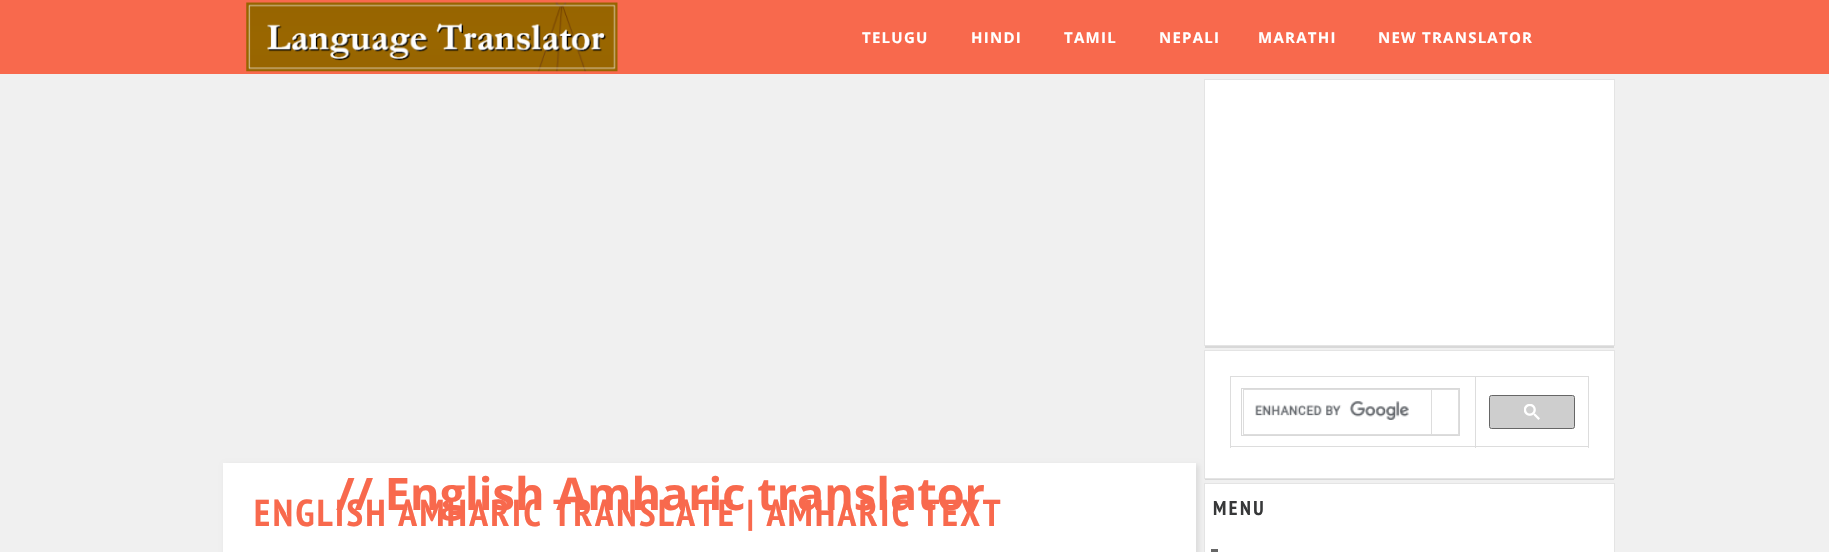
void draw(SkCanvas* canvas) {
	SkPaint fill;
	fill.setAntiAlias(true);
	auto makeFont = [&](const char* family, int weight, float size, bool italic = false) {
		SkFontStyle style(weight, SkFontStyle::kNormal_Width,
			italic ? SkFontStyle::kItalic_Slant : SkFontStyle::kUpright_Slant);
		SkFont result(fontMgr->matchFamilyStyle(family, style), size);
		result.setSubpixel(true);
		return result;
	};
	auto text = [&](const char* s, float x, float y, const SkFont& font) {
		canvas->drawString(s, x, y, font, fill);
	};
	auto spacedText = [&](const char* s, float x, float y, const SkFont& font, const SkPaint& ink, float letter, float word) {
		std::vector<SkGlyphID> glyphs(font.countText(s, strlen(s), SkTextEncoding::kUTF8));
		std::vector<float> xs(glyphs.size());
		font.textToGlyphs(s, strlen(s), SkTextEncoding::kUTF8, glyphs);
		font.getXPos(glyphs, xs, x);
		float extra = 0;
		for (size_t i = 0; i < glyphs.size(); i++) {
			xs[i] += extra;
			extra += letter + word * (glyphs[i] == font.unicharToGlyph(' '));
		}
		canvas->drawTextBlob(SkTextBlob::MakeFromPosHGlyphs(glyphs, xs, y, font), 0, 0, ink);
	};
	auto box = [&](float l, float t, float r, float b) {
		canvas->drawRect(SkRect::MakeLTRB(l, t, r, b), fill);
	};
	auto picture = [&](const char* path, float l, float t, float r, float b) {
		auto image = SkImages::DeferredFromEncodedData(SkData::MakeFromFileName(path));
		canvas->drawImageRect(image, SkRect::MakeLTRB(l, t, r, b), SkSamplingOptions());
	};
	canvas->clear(0xFFF0F0F0);
	fill.setColor(0xFFF8694D);
	box(0, 0, 1829, 74);
	picture("image0.png", 246, 2, 618, 72);
	fill.setColor(0xFFDCDCDC);
	fill.setMaskFilter(SkMaskFilter::MakeBlur(kNormal_SkBlurStyle, 2.5f));
	canvas->drawRect(SkRect::MakeLTRB(225, 465, 1199, 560), fill);
	fill.setMaskFilter(nullptr);
	fill.setColor(0xFFFFFFFF);
	box(223, 463, 1196, 552);
	fill.setColor(0xFFD8D8D8);
	canvas->drawPath(SkPathBuilder().moveTo(1205, 345).lineTo(1205, 348).lineTo(1614, 348).lineTo(1614, 83).lineTo(1614, 345).close().detach(), fill);
	fill.setColor(0xFFFFFFFF);
	canvas->drawRect(SkRect::MakeLTRB(1204.5f, 79.5f, 1614.5f, 345.5f), fill);
	fill.setStyle(SkPaint::kStroke_Style);
	fill.setStrokeWidth(1);
	fill.setColor(0xFFE4E4E4);
	canvas->drawRect(SkRect::MakeLTRB(1204.5f, 79.5f, 1614.5f, 345.5f), fill);
	fill.setStyle(SkPaint::kFill_Style);
	fill.setColor(0xFFD8D8D8);
	canvas->drawPath(SkPathBuilder().moveTo(1205, 478).lineTo(1205, 480).lineTo(1614, 480).lineTo(1614, 354).lineTo(1614, 478).close().detach(), fill);
	fill.setColor(0xFFFFFFFF);
	box(1205, 351, 1614, 478);
	fill.setColor(0xFFDDDDDD);
	box(1475, 376, 1589, 377);
	box(1588, 376, 1589, 448);
	box(1475, 446, 1589, 447);
	box(1475, 376, 1476, 448);
	box(1230, 376, 1476, 377);
	box(1230, 446, 1476, 447);
	box(1230, 376, 1231, 448);
	fill.setStyle(SkPaint::kStroke_Style);
	fill.setColor(0xFFD9D9D9);
	canvas->drawRect(SkRect::MakeLTRB(1241.5f, 388.5f, 1459.5f, 435.5f), fill);
	fill.setStyle(SkPaint::kFill_Style);
	fill.setColor(0xFFDDDDDD);
	box(1431, 389, 1459, 390);
	box(1458, 389, 1459, 435);
	box(1431, 434, 1459, 435);
	box(1431, 389, 1432, 435);
	box(1243, 389, 1433, 390);
	box(1243, 434, 1433, 435);
	box(1243, 389, 1244, 435);
	picture("image1.png", 1255, 401, 1409, 420);
	fill.setColor(0xFFCECECE);
	canvas->drawRoundRect(SkRect::MakeLTRB(1489.5f, 395.5f, 1574.5f, 428.5f), 2, 2, fill);
	fill.setStyle(SkPaint::kStroke_Style);
	fill.setColor(0xFF666666);
	canvas->drawRoundRect(SkRect::MakeLTRB(1489.5f, 395.5f, 1574.5f, 428.5f), 2, 2, fill);
	fill.setColor(0xFFE4E4E4);
	canvas->drawRect(SkRect::MakeLTRB(1204.5f, 350.5f, 1614.5f, 478.5f), fill);
	picture("image2.png", 1524, 404, 1540, 420);
	fill.setStyle(SkPaint::kFill_Style);
	fill.setColor(0xFFFFFFFF);
	box(1205, 484, 1614, 552);
	fill.setColor(0xFF666666);
	box(1211, 549, 1218, 552);
	fill.setStyle(SkPaint::kStroke_Style);
	fill.setColor(0xFFE4E4E4);
	canvas->drawRect(SkRect::MakeLTRB(1204.5f, 483.5f, 1614.5f, 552.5f), fill);
	auto font1 = makeFont("Open Sans", 700, 15);
	fill.setStyle(SkPaint::kFill_Style);
	fill.setColor(0xFFFFFFFF);
	spacedText("TELUGU", 862, 43, font1, fill, 1.25f, 0);
	spacedText("HINDI", 971, 43, font1, fill, 1.25f, 0);
	spacedText("TAMIL", 1064, 43, font1, fill, 1.25f, 0);
	spacedText("NEPALI", 1159, 43, font1, fill, 1.25f, 0);
	spacedText("MARATHI", 1258, 43, font1, fill, 1.25f, 0);
	spacedText("NEW TRANSLATOR", 1378, 43, font1, fill, 1.25f, 0);
	auto font2 = makeFont("PT Sans Narrow", 700, 37.5f);
	fill.setColor(0xFFF8694D);
	spacedText("ENGLISH AMHARIC TRANSLATE | AMHARIC TEXT", 254, 526, font2, fill, 2.5f, 0);
	auto font3 = makeFont("Open Sans", 700, 45);
	text("// English Amharic translator", 336, 510, font3);
	auto font4 = makeFont("PT Sans Narrow", 700, 20);
	fill.setColor(0xFF373839);
	spacedText("MENU", 1213, 515, font4, fill, 2.5f, 0);
}
